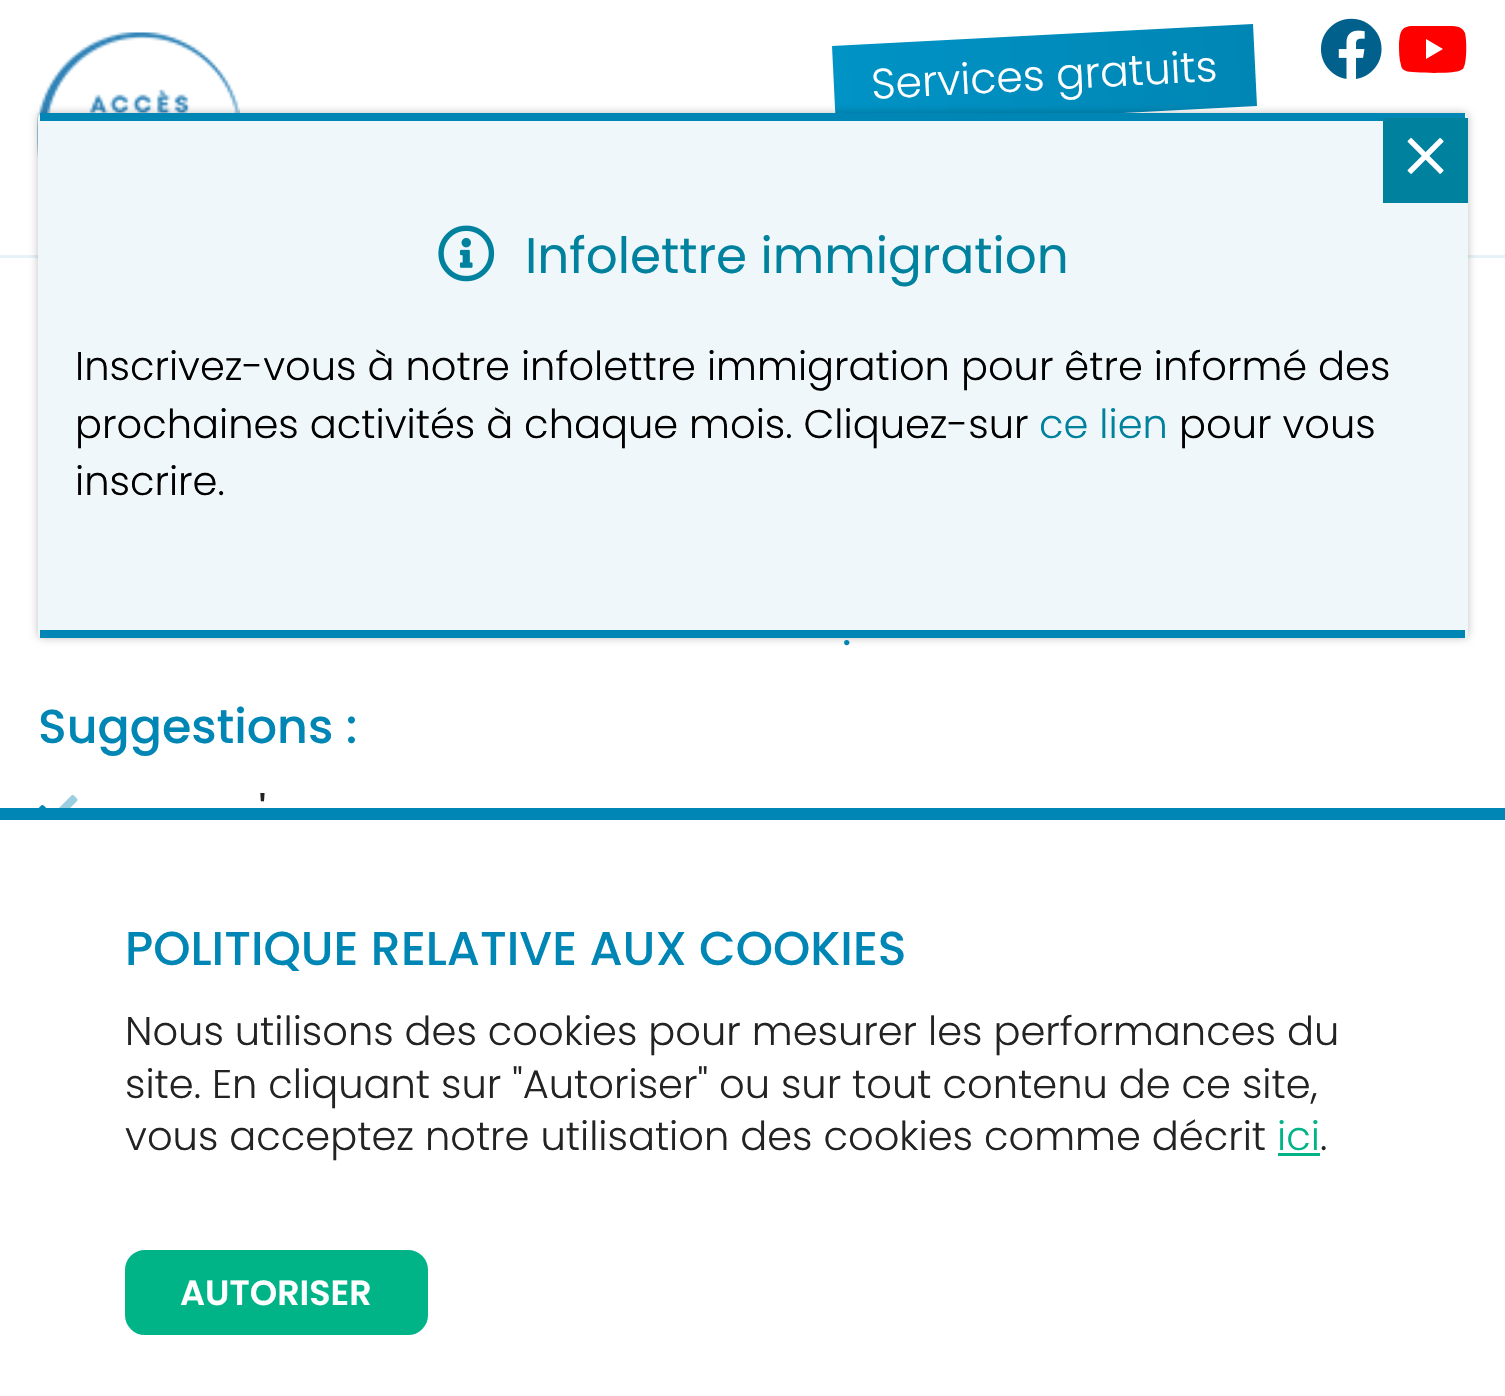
void draw(SkCanvas* canvas) {
	SkPaint fill;
	fill.setAntiAlias(true);
	auto makeFont = [&](const char* family, int weight, float size, bool italic = false) {
		SkFontStyle style(weight, SkFontStyle::kNormal_Width,
			italic ? SkFontStyle::kItalic_Slant : SkFontStyle::kUpright_Slant);
		SkFont result(fontMgr->matchFamilyStyle(family, style), size);
		result.setSubpixel(true);
		return result;
	};
	auto text = [&](const char* s, float x, float y, const SkFont& font) {
		canvas->drawString(s, x, y, font, fill);
	};
	auto box = [&](float l, float t, float r, float b) {
		canvas->drawRect(SkRect::MakeLTRB(l, t, r, b), fill);
	};
	auto roundBox = [&](float l, float t, float r, float b, float radius) {
		canvas->drawRoundRect(SkRect::MakeLTRB(l, t, r, b), radius, radius, fill);
	};
	auto picture = [&](const char* path, float l, float t, float r, float b) {
		auto image = SkImages::DeferredFromEncodedData(SkData::MakeFromFileName(path));
		canvas->drawImageRect(image, SkRect::MakeLTRB(l, t, r, b), SkSamplingOptions());
	};
	canvas->clear(0xFFFFFFFF);
	picture("image0.png", 37, 32, 240, 158);
	picture("image1.png", 1321, 18, 1382, 79);
	fill.setColor(0xFFFF0000);
	canvas->drawPath(SkPathBuilder().moveTo(1465, 33).cubicTo(1467, 41, 1467, 64, 1463, 69).lineTo(1459, 71).cubicTo(1450, 74, 1411, 73, 1406, 71).cubicTo(1403, 70, 1401, 68, 1401, 65).cubicTo(1399, 59, 1399, 51, 1399, 44).cubicTo(1400, 34, 1400, 27, 1411, 26).lineTo(1426, 26).lineTo(1446, 26).cubicTo(1452, 26, 1462, 25, 1465, 33).close().moveTo(1426, 59).lineTo(1443, 49).lineTo(1426, 39).close().detach(), fill);
	{
		const SkColor colors[] = {0xFF0093C5, 0xFF0086B4};
		const float stops[] = {0, 1};
		const SkPoint ends[] = {{834, 87}, {1255, 65}};
		fill.setShader(SkGradientShader::MakeLinear(ends, colors, stops, 2, SkTileMode::kClamp));
		fill.setAlpha(255);
	}
	canvas->drawPath(SkPathBuilder().moveTo(832, 46).lineTo(1253, 24).lineTo(1257, 106).lineTo(836, 128).close().detach(), fill);
	fill.setShader(nullptr);
	fill.setColor(0xFFE6F3F8);
	box(0, 255, 1505, 258);
	fill.setColor(0x40000000);
	fill.setMaskFilter(SkMaskFilter::MakeBlur(kNormal_SkBlurStyle, 4));
	canvas->drawRoundRect(SkRect::MakeLTRB(38, 113, 1468, 638), 5, 5, fill);
	fill.setMaskFilter(nullptr);
	fill.setColor(0xFFEFF7FA);
	roundBox(38, 113, 1468, 638, 5);
	fill.setColor(0xFF0086B4);
	box(40, 113, 1465, 121);
	box(40, 630, 1465, 638);
	fill.setColor(0xFF00819E);
	box(1383, 118, 1468, 203);
	picture("image2.png", 1407, 138, 1444, 174);
	picture("image3.png", 438, 225, 495, 282);
	picture("image4.png", 38, 805, 46, 808);
	picture("image5.png", 59, 795, 78, 808);
	fill.setColor(0xFF0086B4);
	box(0, 808, 1505, 820);
	fill.setColor(0xFF00B488);
	box(1278, 1153, 1320, 1156);
	canvas->drawRoundRect(SkRect::MakeLTRB(127.5f, 1252.5f, 425.5f, 1332.5f), 17.5f, 17.5f, fill);
	fill.setStyle(SkPaint::kStroke_Style);
	fill.setStrokeWidth(5);
	canvas->drawRoundRect(SkRect::MakeLTRB(127.5f, 1252.5f, 425.5f, 1332.5f), 17.5f, 17.5f, fill);
	auto font1 = makeFont("Poppins", 300, 42.5f);
	fill.setStyle(SkPaint::kFill_Style);
	fill.setColor(0xFFFFFFFF);
	canvas->save();
	canvas->rotate(-3, 872, 99);
	text("Services gratuits", 872, 99, font1);
	canvas->restore();
	auto font2 = makeFont("Poppins", 400, 50);
	fill.setColor(0xFF00819E);
	text("Infolettre immigration", 525, 273, font2);
	auto font3 = makeFont("Poppins", 300, 40);
	fill.setColor(0xFF000000);
	text("Inscrivez-vous à notre infolettre immigration pour être informé des", 75, 380, font3);
	text("prochaines activités à chaque mois. Cliquez-sur", 75, 438, font3);
	fill.setColor(0xFF00819E);
	text("ce lien", 1039, 438, font3);
	fill.setColor(0xFF000000);
	text("pour vous", 1179, 438, font3);
	text("inscrire.", 75, 495, font3);
	auto font4 = makeFont("Poppins", 300, 52);
	fill.setColor(0xFF0086B4);
	text(".", 842, 645, font4);
	auto font5 = makeFont("Poppins", 500, 47.5f);
	text("Suggestions :", 38, 743, font5);
	auto font6 = makeFont("Poppins", 500, 40);
	fill.setColor(0xFF232323);
	text("'", 259, 825, font6);
	fill.setColor(0xFF0086B4);
	text("POLITIQUE RELATIVE AUX COOKIES", 125, 965, font5);
	fill.setColor(0xFF232323);
	text("Nous utilisons des cookies pour mesurer les performances du", 125, 1045, font3);
	text("site. En cliquant sur \"Autoriser\" ou sur tout contenu de ce site,", 125, 1098, font3);
	text("vous acceptez notre utilisation des cookies comme décrit", 125, 1150, font3);
	fill.setColor(0xFF00B488);
	text("ici", 1277, 1150, font3);
	fill.setColor(0xFF232323);
	text(".", 1320, 1150, font3);
	auto font7 = makeFont("Poppins", 600, 35);
	fill.setColor(0xFFFFFFFF);
	text("AUTORISER", 180, 1305, font7);
}
